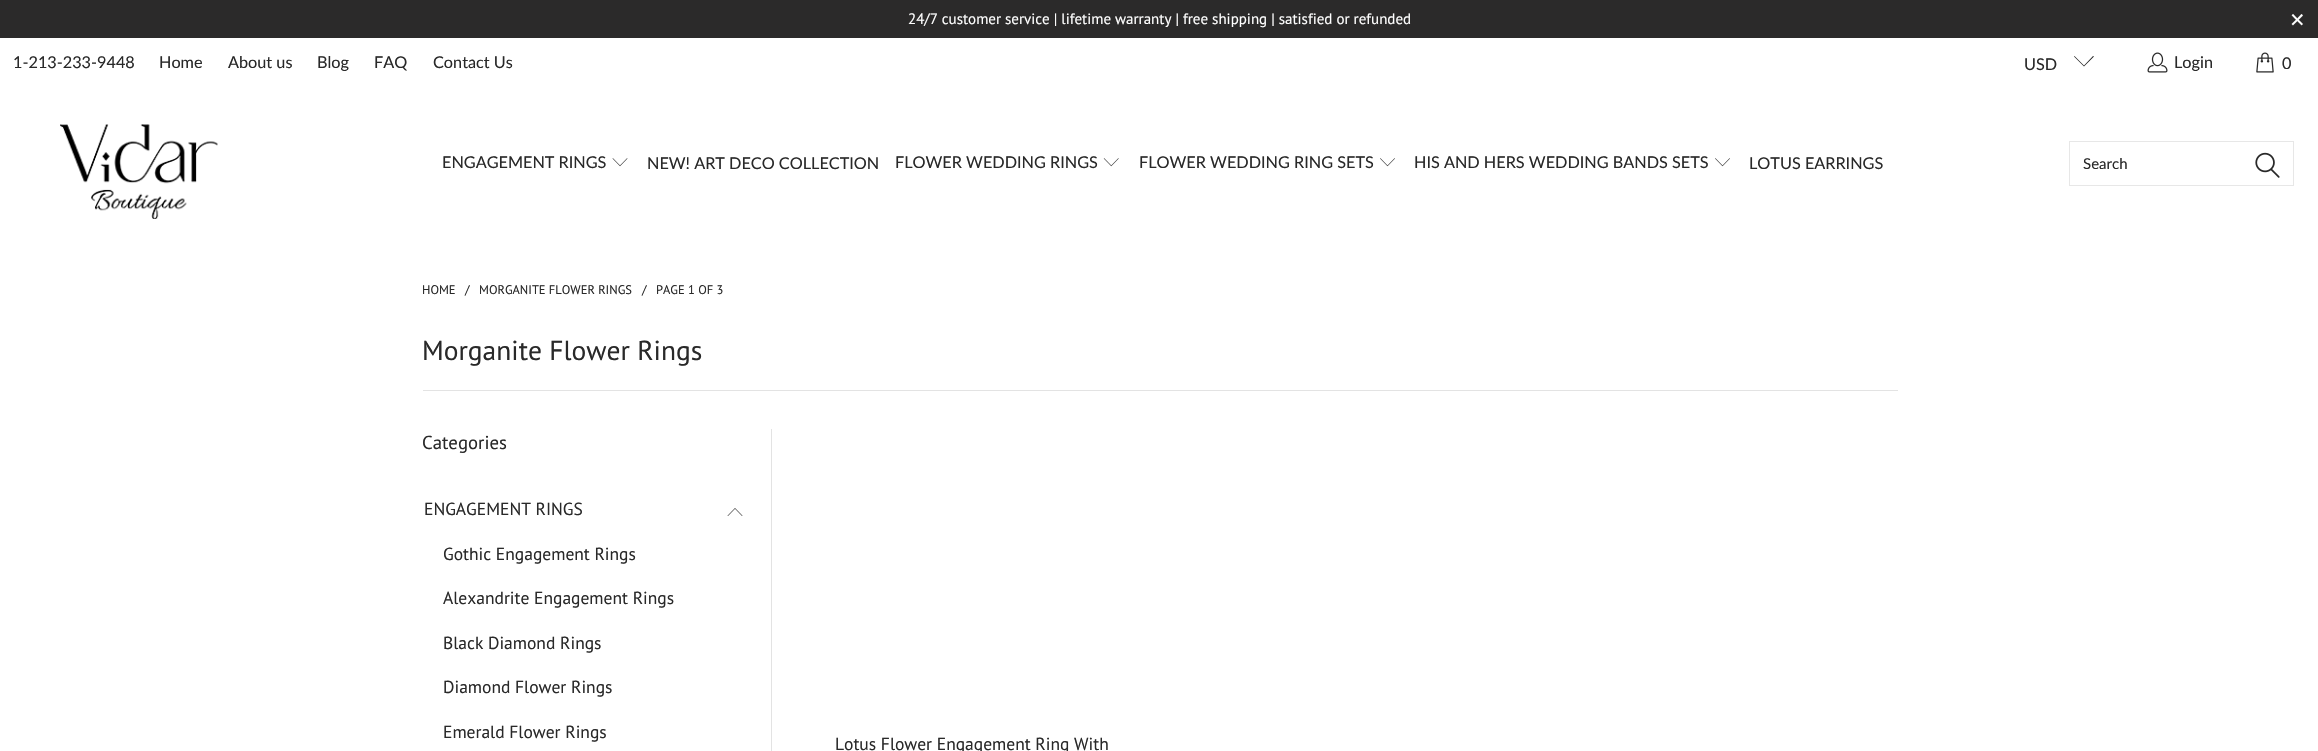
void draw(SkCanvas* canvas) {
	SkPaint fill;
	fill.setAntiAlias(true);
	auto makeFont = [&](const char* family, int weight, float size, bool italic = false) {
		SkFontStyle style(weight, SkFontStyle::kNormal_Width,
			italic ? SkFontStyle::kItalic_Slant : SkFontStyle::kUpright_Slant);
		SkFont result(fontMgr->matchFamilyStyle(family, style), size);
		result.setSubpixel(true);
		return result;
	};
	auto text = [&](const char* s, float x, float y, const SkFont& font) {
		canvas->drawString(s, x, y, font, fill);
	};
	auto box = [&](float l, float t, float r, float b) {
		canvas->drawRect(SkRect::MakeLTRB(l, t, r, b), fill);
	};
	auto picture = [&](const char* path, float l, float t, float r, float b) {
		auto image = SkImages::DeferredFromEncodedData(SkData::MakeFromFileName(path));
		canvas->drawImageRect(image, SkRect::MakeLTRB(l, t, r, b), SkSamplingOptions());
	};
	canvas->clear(0xFFFFFFFF);
	fill.setColor(0xFF2B2A2A);
	box(0, 0, 2318, 38);
	fill.setColor(0xFF292929);
	canvas->drawPath(SkPathBuilder().moveTo(2084, 66.5f).lineTo(2074, 56.5f).lineTo(2074.5f, 56).lineTo(2084, 65.5f).lineTo(2093, 56).lineTo(2094, 56.5f).close().detach(), fill);
	picture("image0.png", 2147, 52, 2168, 73);
	picture("image1.png", 2256, 52, 2274, 73);
	picture("image2.png", 60, 124, 218, 219);
	picture("image3.png", 612, 158, 628, 167);
	picture("image4.png", 1103, 158, 1119, 167);
	picture("image5.png", 1380, 158, 1395, 167);
	picture("image5.png", 1715, 158, 1730, 167);
	fill.setStyle(SkPaint::kStroke_Style);
	fill.setStrokeWidth(1);
	fill.setColor(0xFFE7E7E7);
	canvas->drawRect(SkRect::MakeLTRB(2069.5f, 141.5f, 2293.5f, 185.5f), fill);
	picture("image6.png", 2255, 152, 2280, 178);
	fill.setStyle(SkPaint::kFill_Style);
	fill.setColor(0xFFE3E3E3);
	box(423, 390, 1898, 391);
	box(771, 429, 772, 751);
	picture("image7.png", 727, 508, 743, 516);
	auto font1 = makeFont("PT Sans", 400, 15);
	fill.setColor(0xFFFFFFFF);
	text("24/7 customer service | lifetime warranty | free shipping | satisfied or refunded", 908, 24, font1);
	auto font2 = makeFont("Liberation Sans", 400, 25);
	text("×", 2290, 28, font2);
	auto font3 = makeFont("Lato", 400, 16.25f);
	fill.setColor(0xFF292929);
	text("1-213-233-9448", 13, 68, font3);
	text("Home", 159, 68, font3);
	text("About us", 228, 68, font3);
	text("Blog", 317, 68, font3);
	text("FAQ", 374, 68, font3);
	text("Contact Us", 433, 68, font3);
	text("USD", 2024, 70, font3);
	text("Login", 2174, 68, font3);
	text("0", 2282, 69, font3);
	text("ENGAGEMENT RINGS", 442, 168, font3);
	text("NEW! ART DECO COLLECTION", 647, 169, font3);
	text("FLOWER WEDDING RINGS", 895, 168, font3);
	text("FLOWER WEDDING RING SETS", 1139, 168, font3);
	text("HIS AND HERS WEDDING BANDS SETS", 1414, 168, font3);
	text("LOTUS EARRINGS", 1749, 169, font3);
	auto font4 = makeFont("Lato", 400, 15);
	text("Search", 2083, 169, font4);
	auto font5 = makeFont("PT Sans", 400, 12.5f);
	text("HOME", 422, 294, font5);
	text("/", 465, 294, font5);
	text("MORGANITE FLOWER RINGS", 479, 294, font5);
	text("/", 642, 294, font5);
	text("PAGE 1 OF 3", 656, 294, font5);
	auto font6 = makeFont("PT Sans", 400, 27.5f);
	text("Morganite Flower Rings", 422, 360, font6);
	auto font7 = makeFont("PT Sans", 400, 18.75f);
	text("Categories", 422, 449, font7);
	auto font8 = makeFont("PT Sans", 400, 17.5f);
	text("ENGAGEMENT RINGS", 424, 515, font8);
	text("Gothic Engagement Rings", 443, 560, font8);
	text("Alexandrite Engagement Rings", 443, 604, font8);
	text("Black Diamond Rings", 443, 649, font8);
	text("Diamond Flower Rings", 443, 693, font8);
	text("Emerald Flower Rings", 443, 738, font8);
	text("Lotus Flower Engagement Ring With", 835, 750, font8);
}
